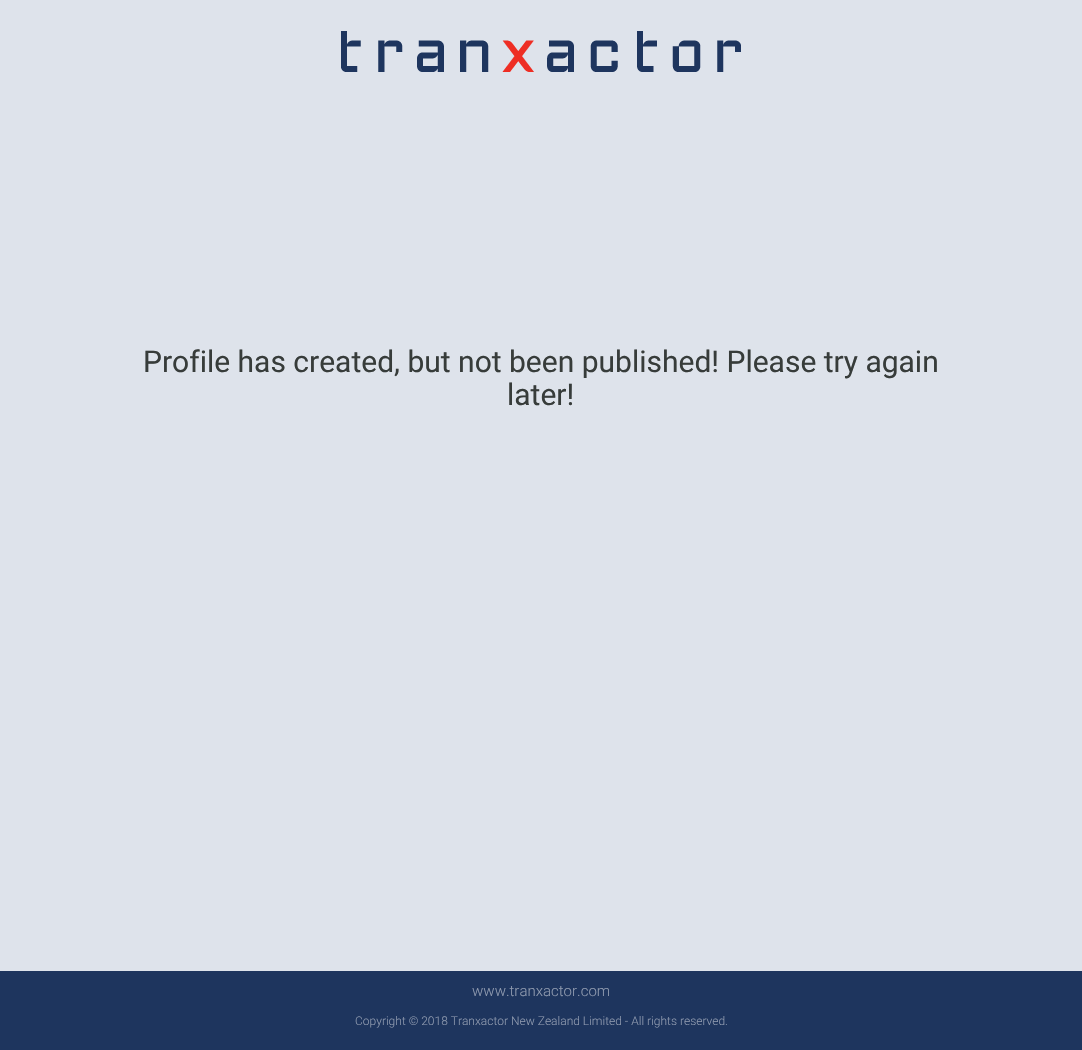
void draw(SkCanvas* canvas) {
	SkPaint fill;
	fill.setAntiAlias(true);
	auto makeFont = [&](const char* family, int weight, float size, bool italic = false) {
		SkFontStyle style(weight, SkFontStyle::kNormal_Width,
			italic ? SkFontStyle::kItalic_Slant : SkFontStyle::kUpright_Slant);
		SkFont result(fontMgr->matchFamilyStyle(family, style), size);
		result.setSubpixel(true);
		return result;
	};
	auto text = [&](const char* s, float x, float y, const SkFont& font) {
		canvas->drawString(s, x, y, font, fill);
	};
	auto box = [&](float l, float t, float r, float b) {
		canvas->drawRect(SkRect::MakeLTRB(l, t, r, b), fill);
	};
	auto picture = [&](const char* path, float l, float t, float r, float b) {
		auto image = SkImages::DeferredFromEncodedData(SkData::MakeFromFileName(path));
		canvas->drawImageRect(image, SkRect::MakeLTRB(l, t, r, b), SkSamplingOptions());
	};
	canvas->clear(0xFFDEE3EB);
	picture("image0.png", 341, 31, 741, 72);
	fill.setColor(0xFF1E355E);
	box(0, 971, 1082, 1050);
	auto font1 = makeFont("Roboto", 400, 30);
	fill.setColor(0xFF373C3A);
	text("Profile has created, but not been published! Please try again", 143, 372, font1);
	text("later!", 507, 405, font1);
	auto font2 = makeFont("Roboto", 300, 15);
	fill.setColor(0xFF8F9AAF);
	text("www.tranxactor.com", 472, 996, font2);
	auto font3 = makeFont("Roboto", 300, 12);
	text("Copyright © 2018 Tranxactor New Zealand Limited - All rights reserved.", 355, 1025, font3);
}
